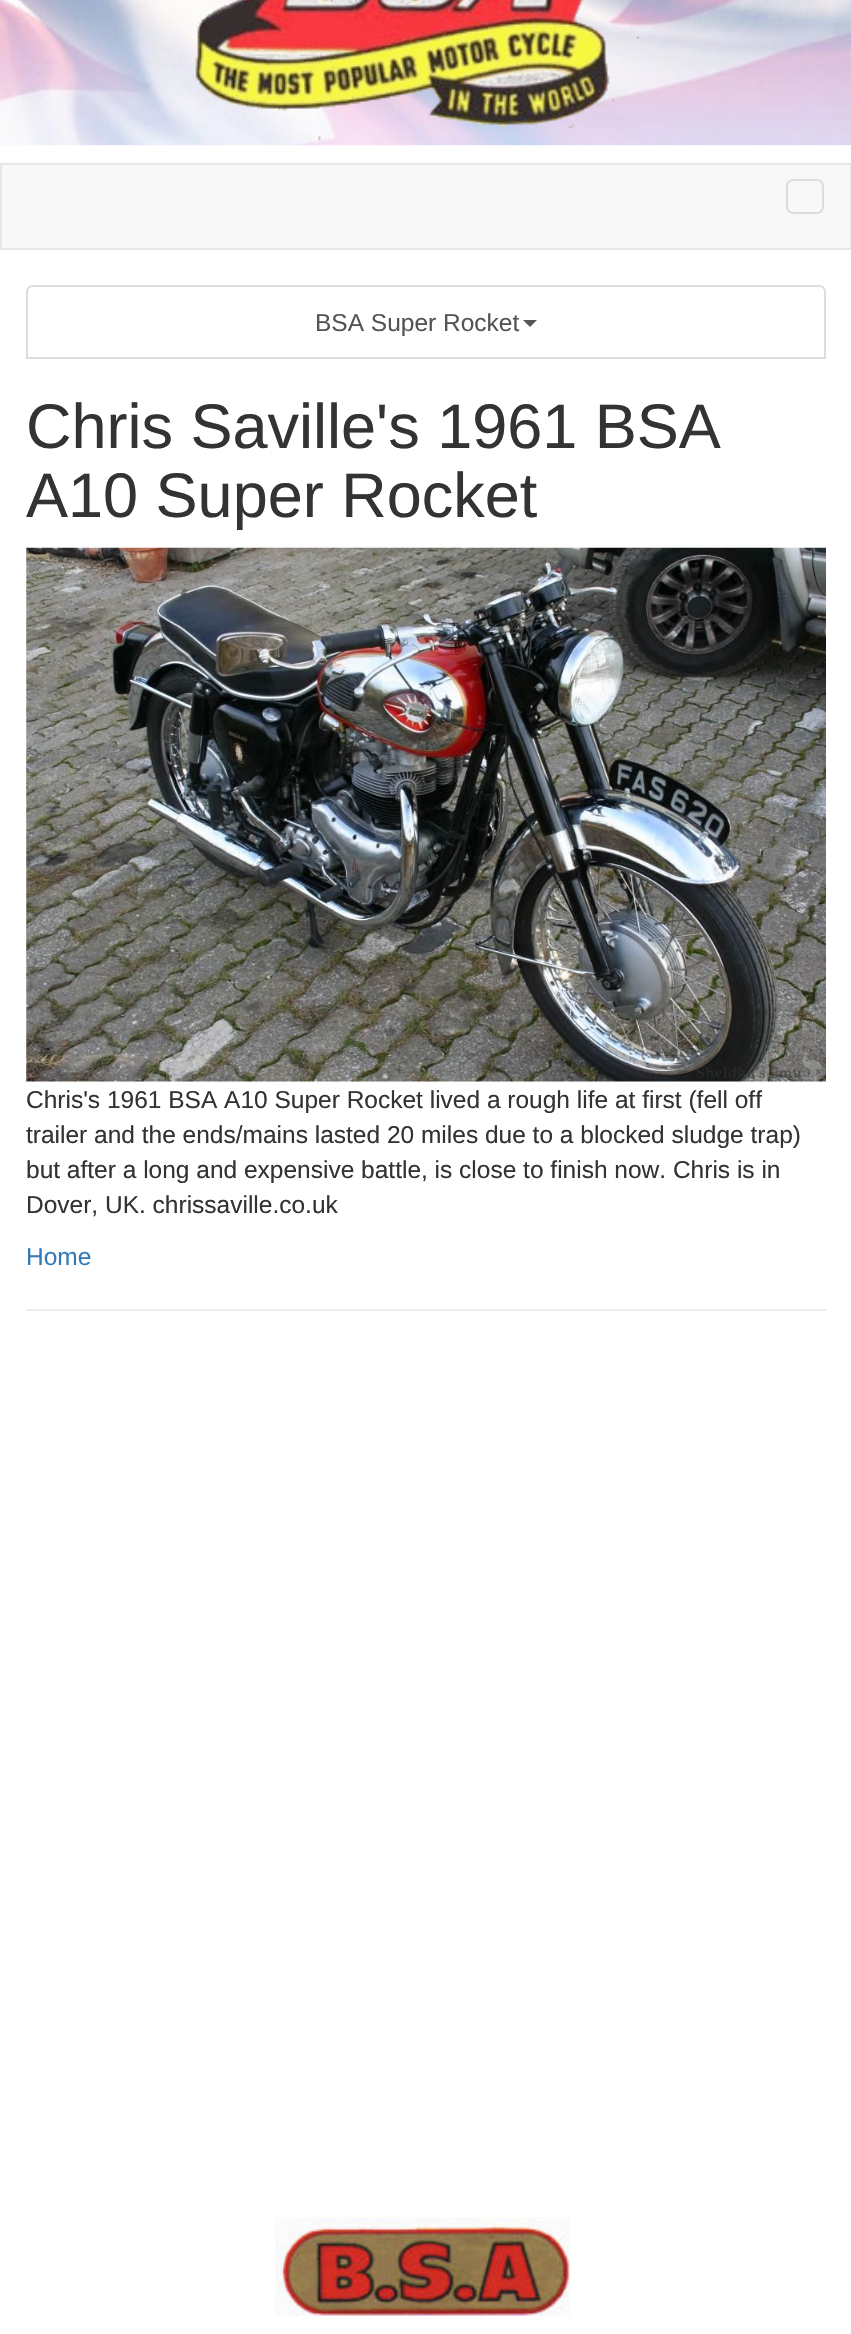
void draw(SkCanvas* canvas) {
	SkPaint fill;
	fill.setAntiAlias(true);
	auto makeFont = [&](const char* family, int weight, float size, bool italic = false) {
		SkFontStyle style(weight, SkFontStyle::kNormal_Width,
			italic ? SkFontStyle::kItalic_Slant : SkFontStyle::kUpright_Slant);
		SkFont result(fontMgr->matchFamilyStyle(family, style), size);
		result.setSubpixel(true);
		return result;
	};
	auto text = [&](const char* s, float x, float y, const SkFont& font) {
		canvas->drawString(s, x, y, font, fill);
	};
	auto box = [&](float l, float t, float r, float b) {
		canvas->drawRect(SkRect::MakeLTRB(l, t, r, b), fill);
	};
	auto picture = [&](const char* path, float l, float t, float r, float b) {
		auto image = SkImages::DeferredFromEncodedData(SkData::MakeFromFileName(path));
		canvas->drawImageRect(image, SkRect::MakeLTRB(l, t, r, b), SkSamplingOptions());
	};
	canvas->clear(0xFFFFFFFF);
	picture("image0.png", 0, 0, 851, 146);
	picture("image1.png", 195, 0, 640, 141);
	fill.setColor(0xFFF8F8F8);
	canvas->drawRect(SkRect::MakeLTRB(1, 164, 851, 249), fill);
	fill.setStyle(SkPaint::kStroke_Style);
	fill.setStrokeWidth(2);
	fill.setColor(0xFFE7E7E7);
	canvas->drawRect(SkRect::MakeLTRB(1, 164, 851, 249), fill);
	fill.setColor(0xFFDDDDDD);
	canvas->drawRoundRect(SkRect::MakeLTRB(787, 180, 823, 213), 6, 6, fill);
	canvas->drawPath(SkPathBuilder().moveTo(33, 286).lineTo(819, 286).cubicTo(822.5f, 286, 825, 288.5f, 825, 292).lineTo(825, 358).lineTo(27, 358).lineTo(27, 292).cubicTo(27, 288.5f, 29.5f, 286, 33, 286).close().detach(), fill);
	fill.setStyle(SkPaint::kFill_Style);
	fill.setColor(0xFF555555);
	canvas->drawPath(SkPathBuilder().moveTo(523, 320).lineTo(537, 320).lineTo(530, 327).close().detach(), fill);
	picture("image2.png", 26, 547, 826, 1082);
	fill.setColor(0xFFEEEEEE);
	box(26, 1309, 826, 1311);
	picture("image3.png", 275, 2217, 570, 2316);
	auto font1 = makeFont("Liberation Sans", 400, 24.5f);
	fill.setColor(0xFF555555);
	text("BSA Super Rocket", 315, 331, font1);
	auto font2 = makeFont("Liberation Sans", 400, 63);
	fill.setColor(0xFF333333);
	text("Chris Saville's 1961 BSA", 26, 448, font2);
	text("A10 Super Rocket", 26, 517, font2);
	text("Chris's 1961 BSA A10 Super Rocket lived a rough life at first (fell off", 26, 1108, font1);
	text("trailer and the ends/mains lasted 20 miles due to a blocked sludge trap)", 26, 1143, font1);
	text("but after a long and expensive battle, is close to finish now. Chris is in", 26, 1178, font1);
	text("Dover, UK. chrissaville.co.uk", 26, 1213, font1);
	fill.setColor(0xFF337AB7);
	text("Home", 26, 1265, font1);
}
